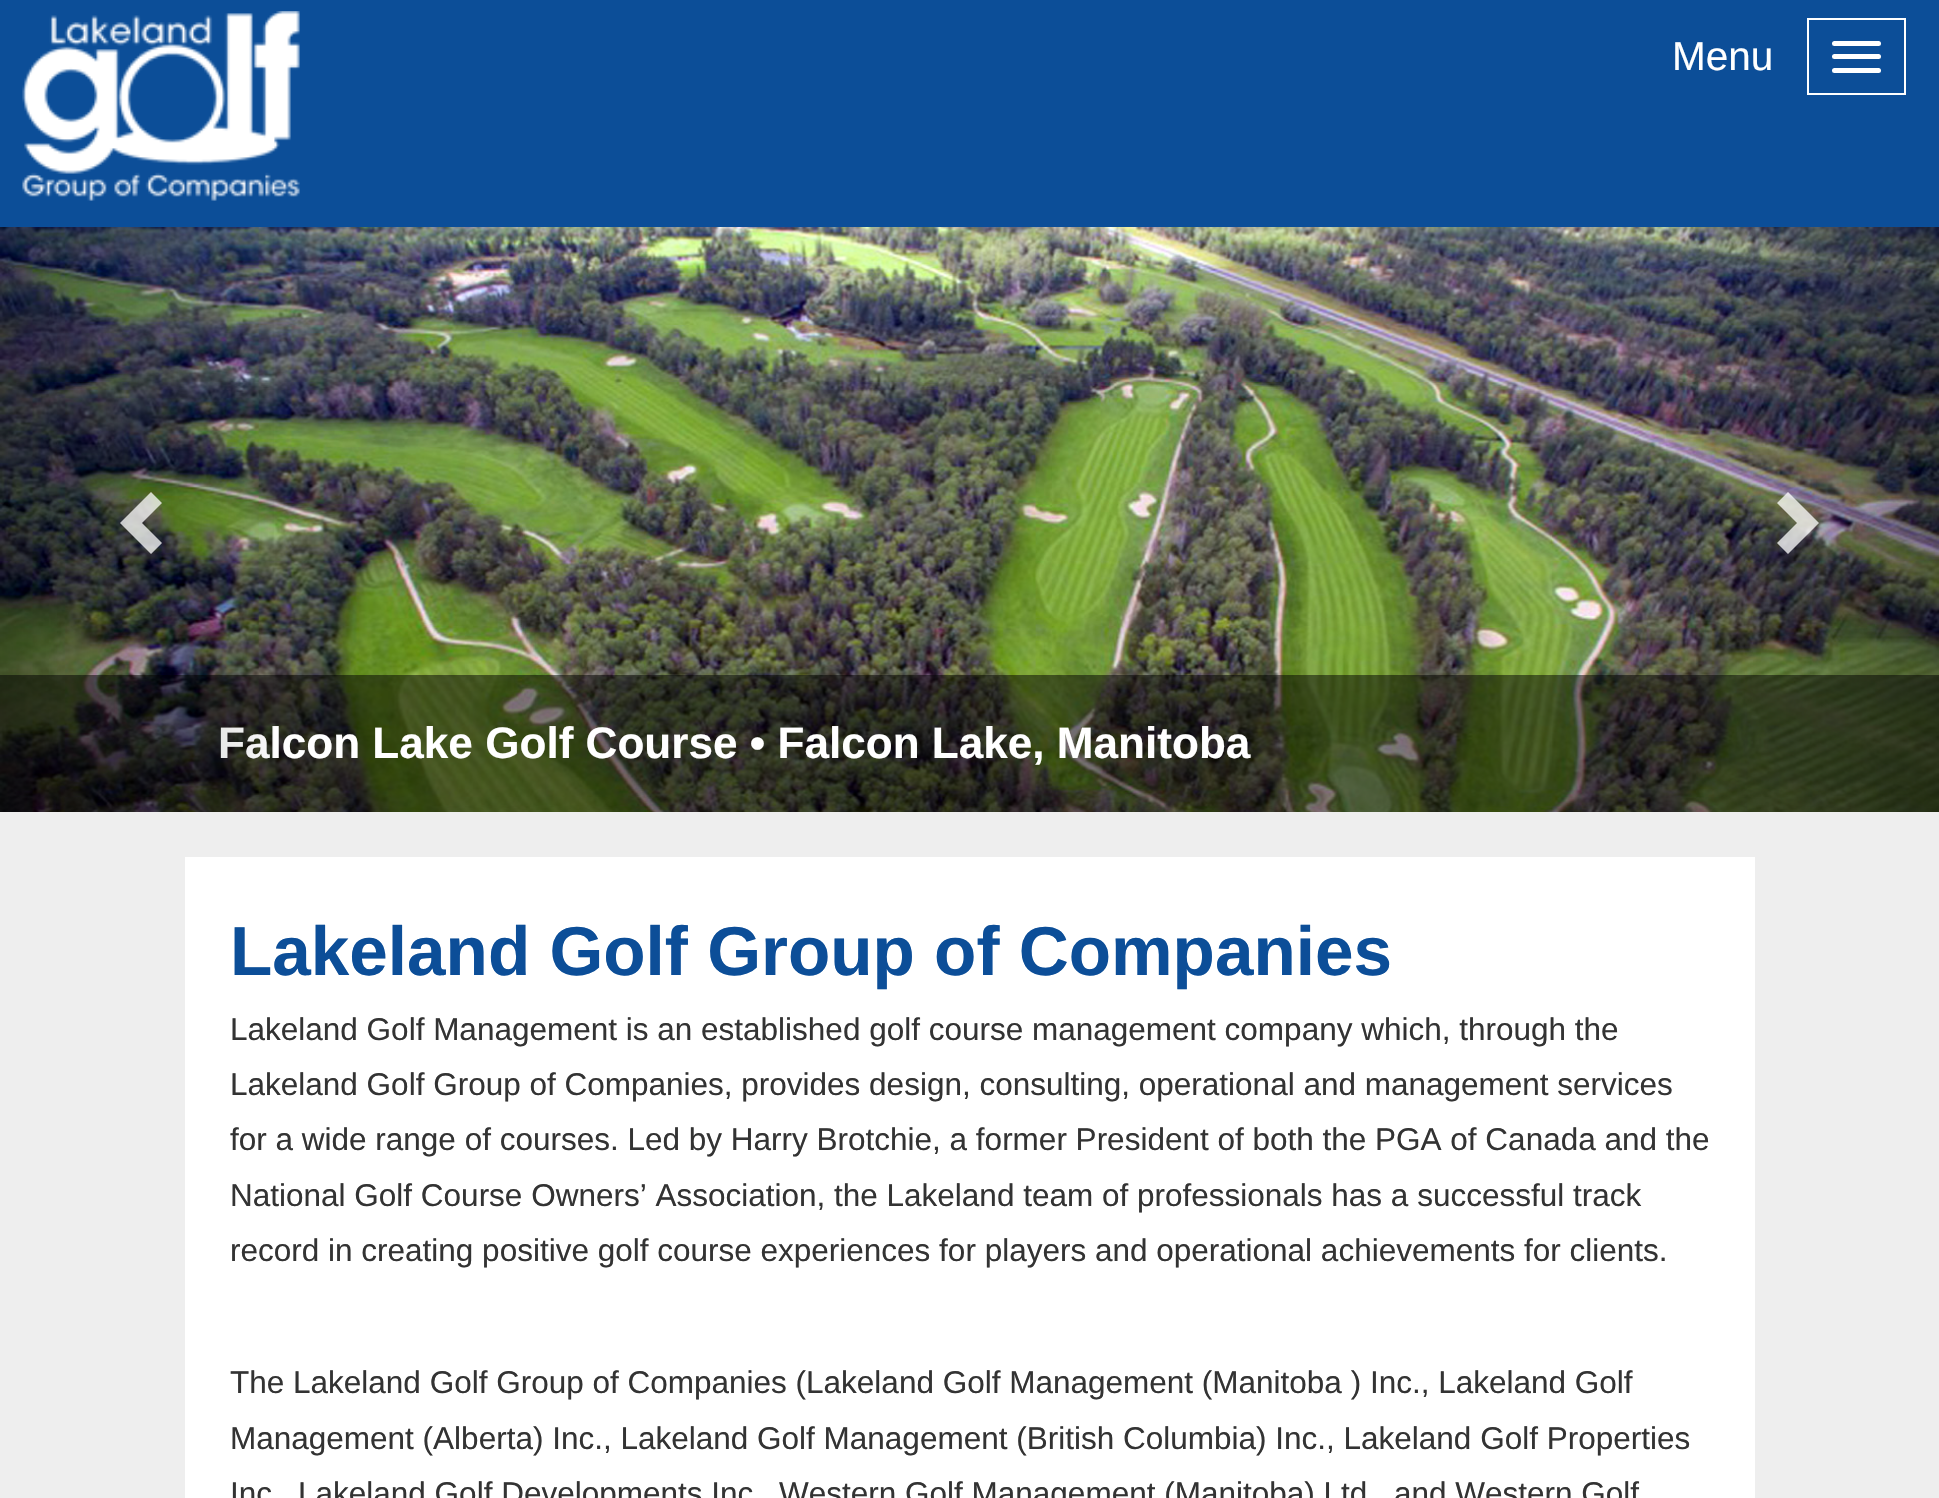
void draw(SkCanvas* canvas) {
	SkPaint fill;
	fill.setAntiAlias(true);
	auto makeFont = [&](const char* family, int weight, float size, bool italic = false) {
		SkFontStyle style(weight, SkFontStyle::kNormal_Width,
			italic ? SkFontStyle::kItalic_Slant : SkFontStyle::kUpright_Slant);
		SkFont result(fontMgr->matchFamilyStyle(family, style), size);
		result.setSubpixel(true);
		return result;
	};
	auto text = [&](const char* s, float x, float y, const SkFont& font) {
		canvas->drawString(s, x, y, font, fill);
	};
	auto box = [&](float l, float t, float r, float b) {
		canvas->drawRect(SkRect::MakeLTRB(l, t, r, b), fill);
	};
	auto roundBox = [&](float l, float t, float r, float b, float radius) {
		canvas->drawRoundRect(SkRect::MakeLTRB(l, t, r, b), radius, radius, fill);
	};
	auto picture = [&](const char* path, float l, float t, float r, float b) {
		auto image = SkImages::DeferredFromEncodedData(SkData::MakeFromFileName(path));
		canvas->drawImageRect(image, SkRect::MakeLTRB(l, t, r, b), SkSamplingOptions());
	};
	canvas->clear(0xFFEEEEEE);
	fill.setColor(0xFF0C4E98);
	box(0, 0, 1939, 227);
	picture("image0.png", 22, 11, 300, 201);
	fill.setStyle(SkPaint::kStroke_Style);
	fill.setStrokeWidth(2);
	fill.setColor(0xFFFFFFFF);
	canvas->drawRect(SkRect::MakeLTRB(1808, 19, 1905, 94), fill);
	fill.setStyle(SkPaint::kFill_Style);
	roundBox(1832, 41, 1881, 46, 2.5f);
	roundBox(1832, 54, 1881, 59, 2.5f);
	roundBox(1832, 68, 1881, 73, 2.5f);
	picture("image1.png", 0, 227, 1939, 812);
	fill.setColor(0x80000000);
	box(0, 675, 1939, 812);
	{
		const SkColor colors[] = {0x00000000, 0x61000000};
		const float stops[] = {0, 1};
		const SkPoint ends[] = {{1649, 520}, {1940, 520}};
		fill.setShader(SkGradientShader::MakeLinear(ends, colors, stops, 2, SkTileMode::kClamp));
		fill.setAlpha(255);
	}
	box(1666, 227, 1939, 812);
	fill.setShader(nullptr);
	fill.setColor(0xBFFFFFFF);
	canvas->drawPath(SkPathBuilder().moveTo(1819, 523).lineTo(1788, 554).lineTo(1777, 543).lineTo(1797, 523).lineTo(1777, 503).lineTo(1788, 492).close().detach(), fill);
	fill.setColor(0xFFFFFFFF);
	box(185, 857, 1755, 1498);
	auto font1 = makeFont("Liberation Sans", 400, 40.5f);
	text("Menu", 1672, 70, font1);
	auto font2 = makeFont("Liberation Sans", 700, 44.1f);
	text("Falcon Lake Golf Course • Falcon Lake, Manitoba", 218, 758, font2);
	{
		const SkColor colors[] = {0x61000000, 0x00000000};
		const float stops[] = {0, 1};
		const SkPoint ends[] = {{0, 520}, {290, 520}};
		fill.setShader(SkGradientShader::MakeLinear(ends, colors, stops, 2, SkTileMode::kClamp));
		fill.setAlpha(255);
	}
	box(0, 227, 274, 812);
	fill.setShader(nullptr);
	fill.setColor(0xBFFFFFFF);
	canvas->drawPath(SkPathBuilder().moveTo(162, 503).lineTo(142, 523).lineTo(162, 543).lineTo(151, 554).lineTo(120, 523).lineTo(151, 492).close().detach(), fill);
	auto font3 = makeFont("Liberation Sans", 700, 69.25f);
	fill.setColor(0xFF0C4E98);
	text("Lakeland Golf Group of Companies", 230, 975, font3);
	auto font4 = makeFont("Liberation Sans", 400, 31.5f);
	fill.setColor(0xFF333333);
	text("Lakeland Golf Management is an established golf course management company which, through the", 230, 1040, font4);
	text("Lakeland Golf Group of Companies, provides design, consulting, operational and management services", 230, 1095, font4);
	text("for a wide range of courses. Led by Harry Brotchie, a former President of both the PGA of Canada and the", 230, 1150, font4);
	text("National Golf Course Owners’ Association, the Lakeland team of professionals has a successful track", 230, 1206, font4);
	text("record in creating positive golf course experiences for players and operational achievements for clients.", 230, 1261, font4);
	text("The Lakeland Golf Group of Companies (Lakeland Golf Management (Manitoba ) Inc., Lakeland Golf", 230, 1393, font4);
	text("Management (Alberta) Inc., Lakeland Golf Management (British Columbia) Inc., Lakeland Golf Properties", 230, 1449, font4);
	text("Inc", 230, 1504, font4);
	text("Lakeland Golf Developments Inc", 298, 1504, font4);
	text("Western Golf Management (Manitoba) Ltd", 779, 1504, font4);
	text("and Western Golf", 1394, 1504, font4);
}
